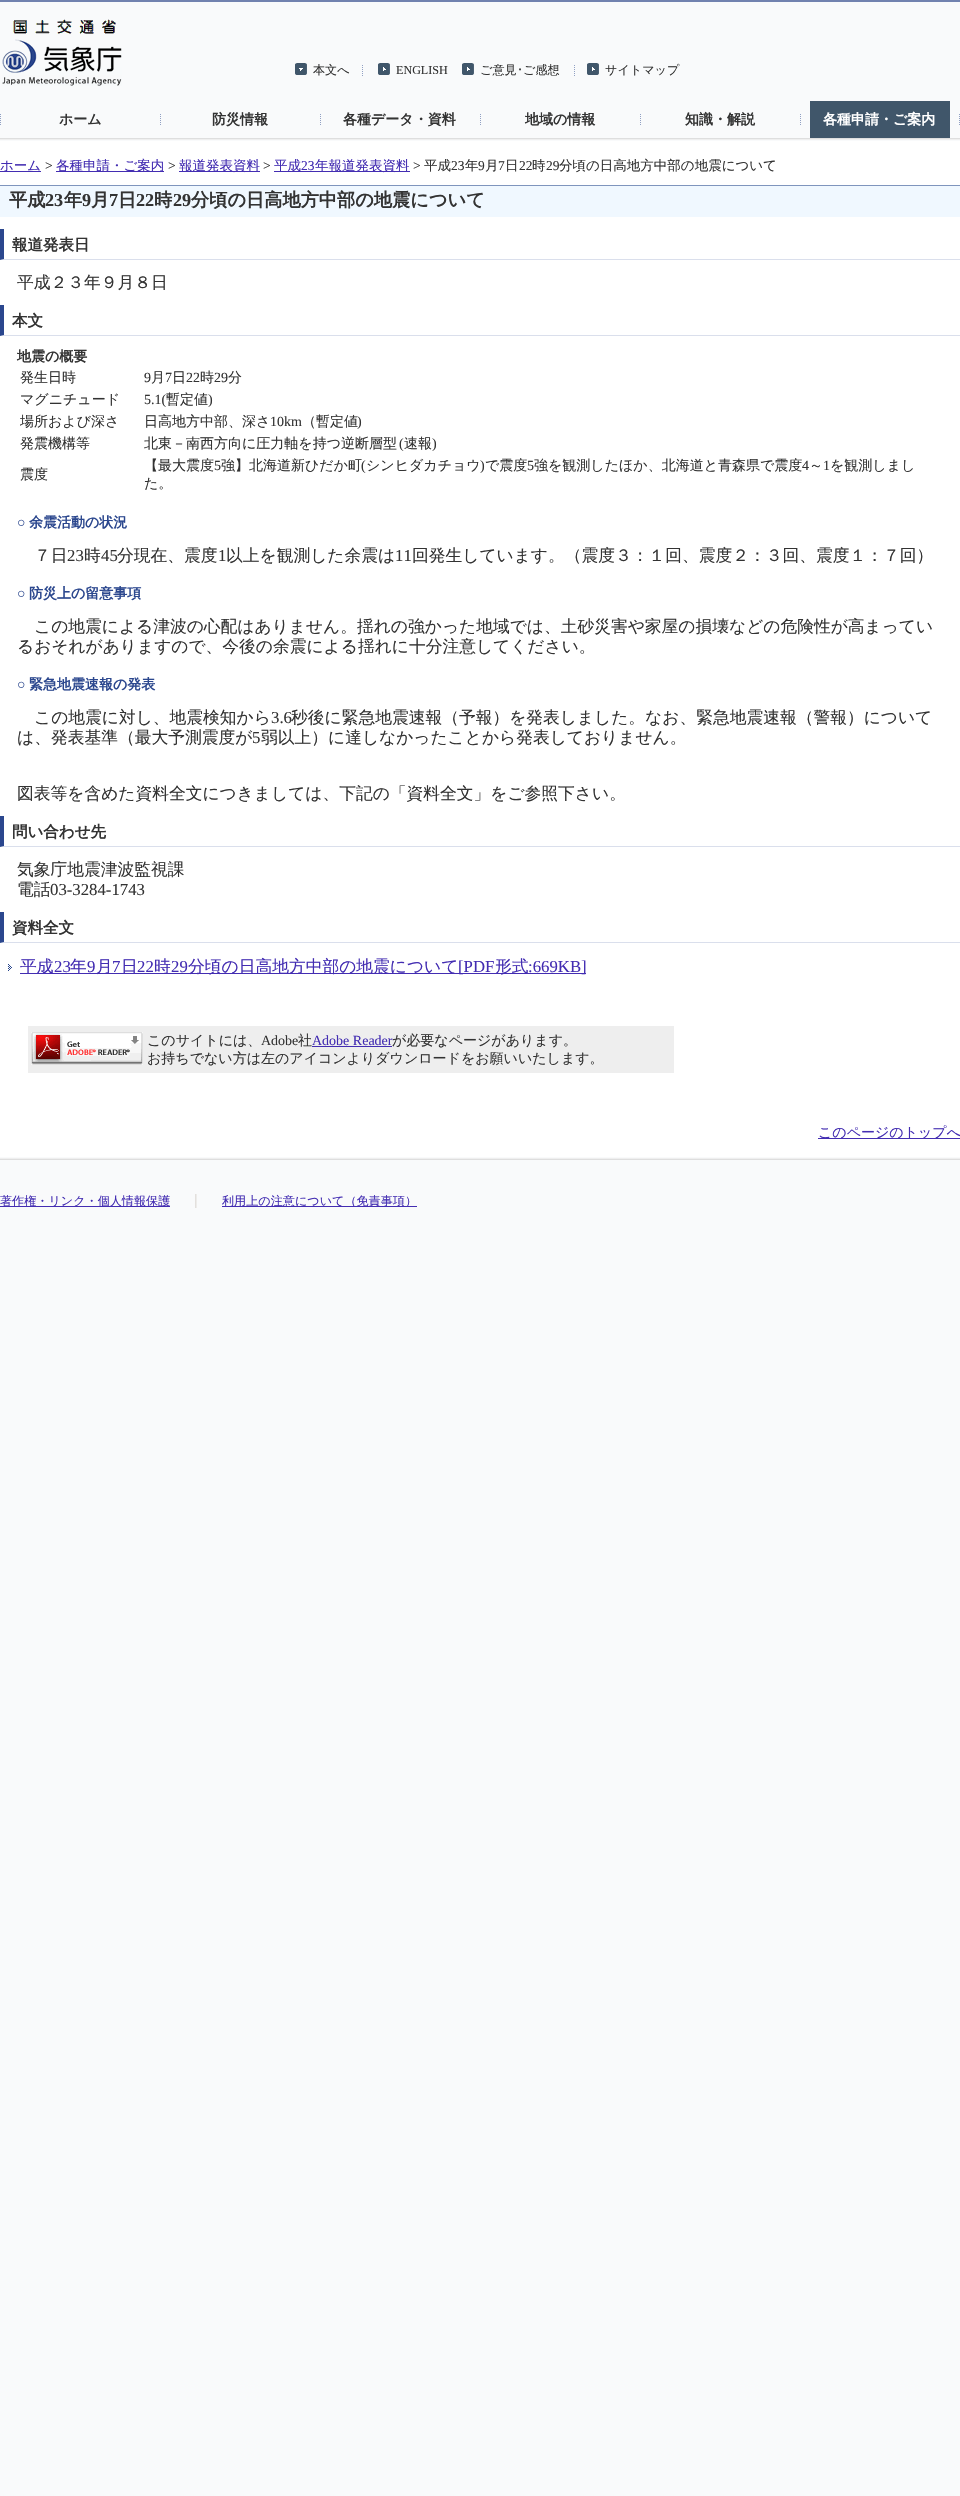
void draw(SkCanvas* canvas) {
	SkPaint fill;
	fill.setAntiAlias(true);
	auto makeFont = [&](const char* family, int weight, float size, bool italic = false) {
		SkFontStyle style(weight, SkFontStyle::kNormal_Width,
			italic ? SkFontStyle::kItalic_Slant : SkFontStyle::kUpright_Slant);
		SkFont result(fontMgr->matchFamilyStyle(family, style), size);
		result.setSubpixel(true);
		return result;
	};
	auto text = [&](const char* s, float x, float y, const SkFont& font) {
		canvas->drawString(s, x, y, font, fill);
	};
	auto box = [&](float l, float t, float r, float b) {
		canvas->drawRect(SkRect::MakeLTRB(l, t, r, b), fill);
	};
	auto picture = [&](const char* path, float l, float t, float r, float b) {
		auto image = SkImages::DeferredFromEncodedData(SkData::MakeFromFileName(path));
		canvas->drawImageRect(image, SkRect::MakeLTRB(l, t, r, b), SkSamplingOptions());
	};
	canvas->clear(0xFFF9FAFB);
	picture("image0.png", 0, 138, 960, 140);
	fill.setColor(0xFF7182AF);
	box(0, 0, 960, 2);
	picture("image1.png", 2, 19, 122, 86);
	picture("image2.png", 362, 65, 363, 76);
	picture("image3.png", 295, 63, 307, 75);
	picture("image4.png", 378, 63, 390, 75);
	picture("image4.png", 462, 63, 474, 75);
	picture("image2.png", 574, 65, 575, 76);
	picture("image4.png", 587, 63, 599, 75);
	picture("image2.png", 959, 114, 960, 125);
	picture("image2.png", 0, 114, 1, 125);
	picture("image2.png", 160, 114, 161, 125);
	picture("image2.png", 320, 114, 321, 125);
	picture("image2.png", 480, 114, 481, 125);
	picture("image2.png", 640, 114, 641, 125);
	picture("image2.png", 800, 114, 801, 125);
	fill.setColor(0xFF40566A);
	box(810, 101, 950, 138);
	fill.setColor(0xFFFFFFFF);
	box(0, 141, 960, 1157);
	fill.setColor(0xFF432DB2);
	box(0, 171, 41, 172);
	box(56, 171, 164, 172);
	box(179, 171, 260, 172);
	box(274, 171, 410, 172);
	fill.setColor(0xFFF0F8FF);
	box(0, 186, 960, 217);
	fill.setColor(0xFF7F95BD);
	box(0, 185, 960, 186);
	fill.setColor(0xFFDADFEC);
	canvas->drawPath(SkPathBuilder().moveTo(960, 260).lineTo(0, 260).lineTo(4, 259).lineTo(960, 259).close().detach(), fill);
	fill.setColor(0xFF2B478E);
	canvas->drawPath(SkPathBuilder().moveTo(0, 260).lineTo(0, 229).lineTo(4, 229).lineTo(4, 259).close().detach(), fill);
	fill.setColor(0xFFDADFEC);
	canvas->drawPath(SkPathBuilder().moveTo(960, 336).lineTo(0, 336).lineTo(4, 335).lineTo(960, 335).close().detach(), fill);
	fill.setColor(0xFF2B478E);
	canvas->drawPath(SkPathBuilder().moveTo(0, 336).lineTo(0, 305).lineTo(4, 305).lineTo(4, 335).close().detach(), fill);
	fill.setColor(0xFFDADFEC);
	canvas->drawPath(SkPathBuilder().moveTo(960, 847).lineTo(0, 847).lineTo(4, 846).lineTo(960, 846).close().detach(), fill);
	fill.setColor(0xFF2B478E);
	canvas->drawPath(SkPathBuilder().moveTo(0, 847).lineTo(0, 816).lineTo(4, 816).lineTo(4, 846).close().detach(), fill);
	fill.setColor(0xFFDADFEC);
	canvas->drawPath(SkPathBuilder().moveTo(960, 943).lineTo(0, 943).lineTo(4, 942).lineTo(960, 942).close().detach(), fill);
	fill.setColor(0xFF2B478E);
	canvas->drawPath(SkPathBuilder().moveTo(0, 943).lineTo(0, 912).lineTo(4, 912).lineTo(4, 942).close().detach(), fill);
	picture("image5.png", 8, 964, 12, 971);
	fill.setColor(0xFF432DB2);
	box(20, 973, 586, 974);
	fill.setColor(0xFFEEEEEE);
	box(28, 1026, 674, 1073);
	picture("image6.png", 31, 1032, 143, 1065);
	fill.setColor(0xFF432DB2);
	box(312, 1046, 392, 1047);
	box(818, 1138, 960, 1139);
	picture("image7.png", 0, 1158, 960, 1160);
	fill.setColor(0xFFE3E0DD);
	box(195, 1194, 196, 1208);
	fill.setColor(0xFF432DB2);
	box(0, 1206, 170, 1207);
	fill.setColor(0xFFEDECEA);
	box(196, 1194, 197, 1208);
	fill.setColor(0xFF432DB2);
	box(222, 1206, 417, 1207);
	auto font1 = makeFont("WenQuanYi Zen Hei", 500, 12.1f);
	fill.setColor(0xFF333333);
	text("本文へ", 313, 74, font1);
	auto font2 = makeFont("Liberation Serif", 400, 12.1f);
	text("ENGLISH", 396, 74, font2);
	text("ご意見", 480, 74, font1);
	auto font3 = makeFont("IPAPGothic", 400, 12.1f);
	text("･", 517, 74, font3);
	text("ご感想", 523, 74, font1);
	text("サイトマップ", 605, 74, font1);
	auto font4 = makeFont("WenQuanYi Zen Hei", 700, 14);
	text("ホーム", 59, 124, font4);
	text("防災情報", 212, 124, font4);
	text("各種データ・資料", 343, 124, font4);
	text("地域の情報", 525, 124, font4);
	text("知識・解説", 685, 124, font4);
	fill.setColor(0xFFFFFFFF);
	text("各種申請・ご案内", 823, 124, font4);
	auto font5 = makeFont("WenQuanYi Zen Hei", 500, 13.5f);
	fill.setColor(0xFF432DB2);
	text("ホーム", 0, 170, font5);
	auto font6 = makeFont("Liberation Serif", 400, 13.5f);
	fill.setColor(0xFF333333);
	text(">", 45, 170, font6);
	fill.setColor(0xFF432DB2);
	text("各種申請・ご案内", 56, 170, font5);
	fill.setColor(0xFF333333);
	text(">", 168, 170, font6);
	fill.setColor(0xFF432DB2);
	text("報道発表資料", 179, 170, font5);
	fill.setColor(0xFF333333);
	text(">", 263, 170, font6);
	fill.setColor(0xFF432DB2);
	text("平成", 274, 170, font5);
	text("23", 301, 170, font6);
	text("年報道発表資料", 315, 170, font5);
	fill.setColor(0xFF333333);
	text(">", 413, 170, font6);
	text("平成", 424, 170, font5);
	text("23", 451, 170, font6);
	text("年", 465, 170, font5);
	text("9", 478, 170, font6);
	text("月", 485, 170, font5);
	text("7", 498, 170, font6);
	text("日", 505, 170, font5);
	text("22", 519, 170, font6);
	text("時", 532, 170, font5);
	text("29", 546, 170, font6);
	text("分頃の日高地方中部の地震について", 559, 170, font5);
	auto font7 = makeFont("WenQuanYi Zen Hei", 700, 18.2f);
	text("平成", 9, 206, font7);
	auto font8 = makeFont("Liberation Serif", 700, 18.2f);
	text("23", 45, 206, font8);
	text("年", 64, 206, font7);
	text("9", 82, 206, font8);
	text("月", 91, 206, font7);
	text("7", 109, 206, font8);
	text("日", 118, 206, font7);
	text("22", 136, 206, font8);
	text("時", 154, 206, font7);
	text("29", 173, 206, font8);
	text("分頃の日高地方中部の地震について", 191, 206, font7);
	auto font9 = makeFont("WenQuanYi Zen Hei", 700, 15.5f);
	text("報道発表日", 12, 250, font9);
	auto font10 = makeFont("WenQuanYi Zen Hei", 500, 16.75f);
	text("平成２３年９月８日", 17, 288, font10);
	text("本文", 12, 326, font9);
	text("地震の概要", 17, 361, font4);
	auto font11 = makeFont("WenQuanYi Zen Hei", 500, 14);
	text("発生日時", 20, 382, font11);
	auto font12 = makeFont("Liberation Serif", 400, 14);
	text("9", 144, 382, font12);
	text("月", 151, 382, font11);
	text("7", 165, 382, font12);
	text("日", 172, 382, font11);
	text("22", 186, 382, font12);
	text("時", 200, 382, font11);
	text("29", 214, 382, font12);
	text("分", 228, 382, font11);
	text("マグニチュード", 20, 404, font11);
	text("5.1(", 144, 404, font12);
	text("暫定値", 166, 404, font11);
	text(")", 208, 404, font12);
	text("場所および深さ", 20, 426, font11);
	text("日高地方中部、深さ", 144, 426, font11);
	text("10km", 270, 426, font12);
	text("（暫定値", 302, 426, font11);
	text(")", 357, 426, font12);
	text("発震機構等", 20, 448, font11);
	text("北東－南西方向に圧力軸を持つ逆断層型", 144, 448, font11);
	text("(", 399, 448, font12);
	text("速報", 404, 448, font11);
	text(")", 432, 448, font12);
	text("震度", 20, 479, font11);
	text("【最大震度", 144, 470, font11);
	text("5", 214, 470, font12);
	text("強】北海道新ひだか町", 221, 470, font11);
	text("(", 361, 470, font12);
	text("シンヒダカチョウ", 366, 470, font11);
	text(")", 480, 470, font12);
	text("で震度", 485, 470, font11);
	text("5", 527, 470, font12);
	text("強を観測したほか、北海道と青森県で震度", 534, 470, font11);
	text("4", 802, 470, font12);
	text("～", 809, 470, font11);
	text("1", 823, 470, font12);
	text("を観測しまし", 830, 470, font11);
	text("た。", 144, 488, font11);
	auto font13 = makeFont("Liberation Serif", 700, 14);
	fill.setColor(0xFF2B478E);
	text("○", 17, 527, font13);
	text("余震活動の状況", 29, 527, font4);
	fill.setColor(0xFF333333);
	text("７日", 34, 561, font10);
	auto font14 = makeFont("Liberation Serif", 400, 16.75f);
	text("23", 67, 561, font14);
	text("時", 84, 561, font10);
	text("45", 101, 561, font14);
	text("分現在、震度", 117, 561, font10);
	text("1", 218, 561, font14);
	text("以上を観測した余震は", 226, 561, font10);
	text("11", 395, 561, font14);
	text("回発生しています。（震度３：１回、震度２：３回、震度１：７回）", 412, 561, font10);
	fill.setColor(0xFF2B478E);
	text("○", 17, 598, font13);
	text("防災上の留意事項", 29, 598, font4);
	fill.setColor(0xFF333333);
	text("この地震による津波の心配はありません。揺れの強かった地域では、土砂災害や家屋の損壊などの危険性が高まってい", 34, 632, font10);
	text("るおそれがありますので、今後の余震による揺れに十分注意してください。", 17, 652, font10);
	fill.setColor(0xFF2B478E);
	text("○", 17, 689, font13);
	text("緊急地震速報の発表", 29, 689, font4);
	fill.setColor(0xFF333333);
	text("この地震に対し、地震検知から", 34, 723, font10);
	text("3.6", 271, 723, font14);
	text("秒後に緊急地震速報（予報）を発表しました。なお、緊急地震速報（警報）について", 291, 723, font10);
	text("は、発表基準（最大予測震度が", 17, 743, font10);
	text("5", 252, 743, font14);
	text("弱以上）に達しなかったことから発表しておりません。", 261, 743, font10);
	text("図表等を含めた資料全文につきましては、下記の「資料全文」をご参照下さい。", 17, 799, font10);
	text("問い合わせ先", 12, 837, font9);
	text("気象庁地震津波監視課", 17, 875, font10);
	text("電話", 17, 895, font10);
	text("03-3284-1743", 50, 895, font14);
	text("資料全文", 12, 933, font9);
	fill.setColor(0xFF432DB2);
	text("平成", 20, 972, font10);
	text("23", 54, 972, font14);
	text("年", 70, 972, font10);
	text("9", 87, 972, font14);
	text("月", 96, 972, font10);
	text("7", 112, 972, font14);
	text("日", 121, 972, font10);
	text("22", 137, 972, font14);
	text("時", 154, 972, font10);
	text("29", 171, 972, font14);
	text("分頃の日高地方中部の地震について", 188, 972, font10);
	text("[PDF", 458, 972, font14);
	text("形式", 495, 972, font10);
	text(":669KB]", 528, 972, font14);
	fill.setColor(0xFF333333);
	text("このサイトには、", 147, 1045, font11);
	text("Adobe", 261, 1045, font12);
	text("社", 298, 1045, font11);
	fill.setColor(0xFF432DB2);
	text("Adobe Reader", 312, 1045, font12);
	fill.setColor(0xFF333333);
	text("が必要なページがあります。", 392, 1045, font11);
	text("お持ちでない方は左のアイコンよりダウンロードをお願いいたします。", 147, 1063, font11);
	fill.setColor(0xFF432DB2);
	text("このページのトップへ", 818, 1137, font11);
	text("著作権・リンク・個人情報保護", 0, 1205, font1);
	text("利用上の注意について（免責事項）", 222, 1205, font1);
}
